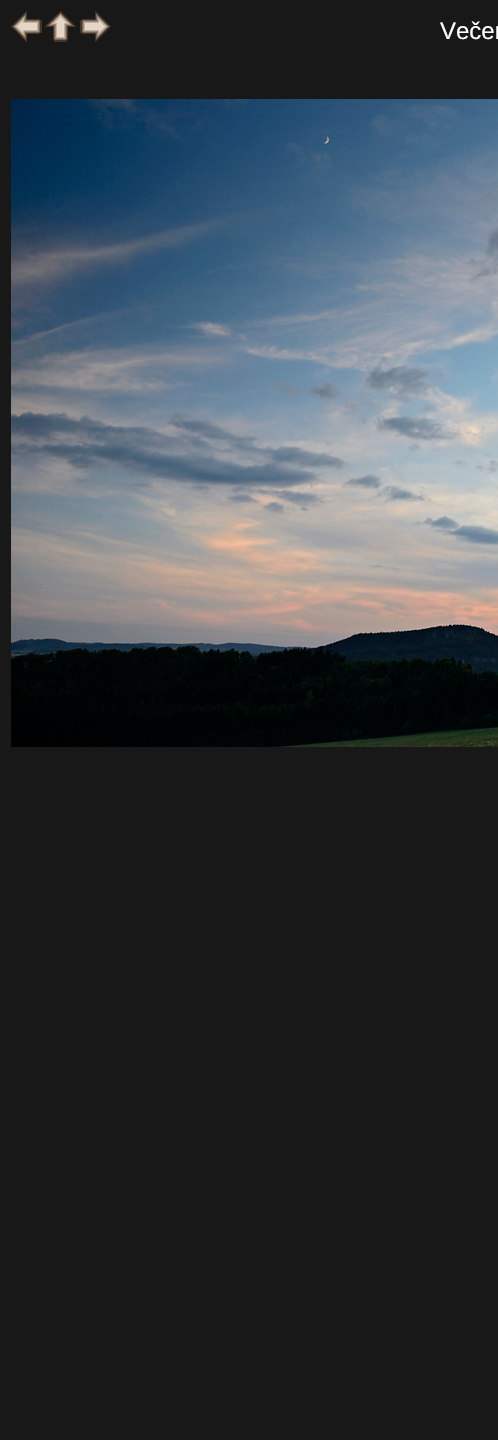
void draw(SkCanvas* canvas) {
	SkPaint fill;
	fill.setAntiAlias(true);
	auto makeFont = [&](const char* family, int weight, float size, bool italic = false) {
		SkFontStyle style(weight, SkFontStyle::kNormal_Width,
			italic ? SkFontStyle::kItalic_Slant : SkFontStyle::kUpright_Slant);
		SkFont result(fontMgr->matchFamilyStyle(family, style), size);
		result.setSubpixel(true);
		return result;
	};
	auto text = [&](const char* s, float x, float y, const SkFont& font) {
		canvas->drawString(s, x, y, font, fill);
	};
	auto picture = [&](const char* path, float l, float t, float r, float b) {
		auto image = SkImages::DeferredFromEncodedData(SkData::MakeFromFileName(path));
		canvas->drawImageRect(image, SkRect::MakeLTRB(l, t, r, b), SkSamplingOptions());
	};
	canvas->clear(0xFF181818);
	picture("image0.png", 11, 11, 42, 42);
	picture("image1.png", 45, 11, 76, 42);
	picture("image2.png", 80, 11, 111, 42);
	picture("image3.png", 11, 99, 498, 747);
	auto font1 = makeFont("Liberation Sans", 400, 24);
	fill.setColor(0xFFFFFFFF);
	text("Večer", 440, 39, font1);
}
